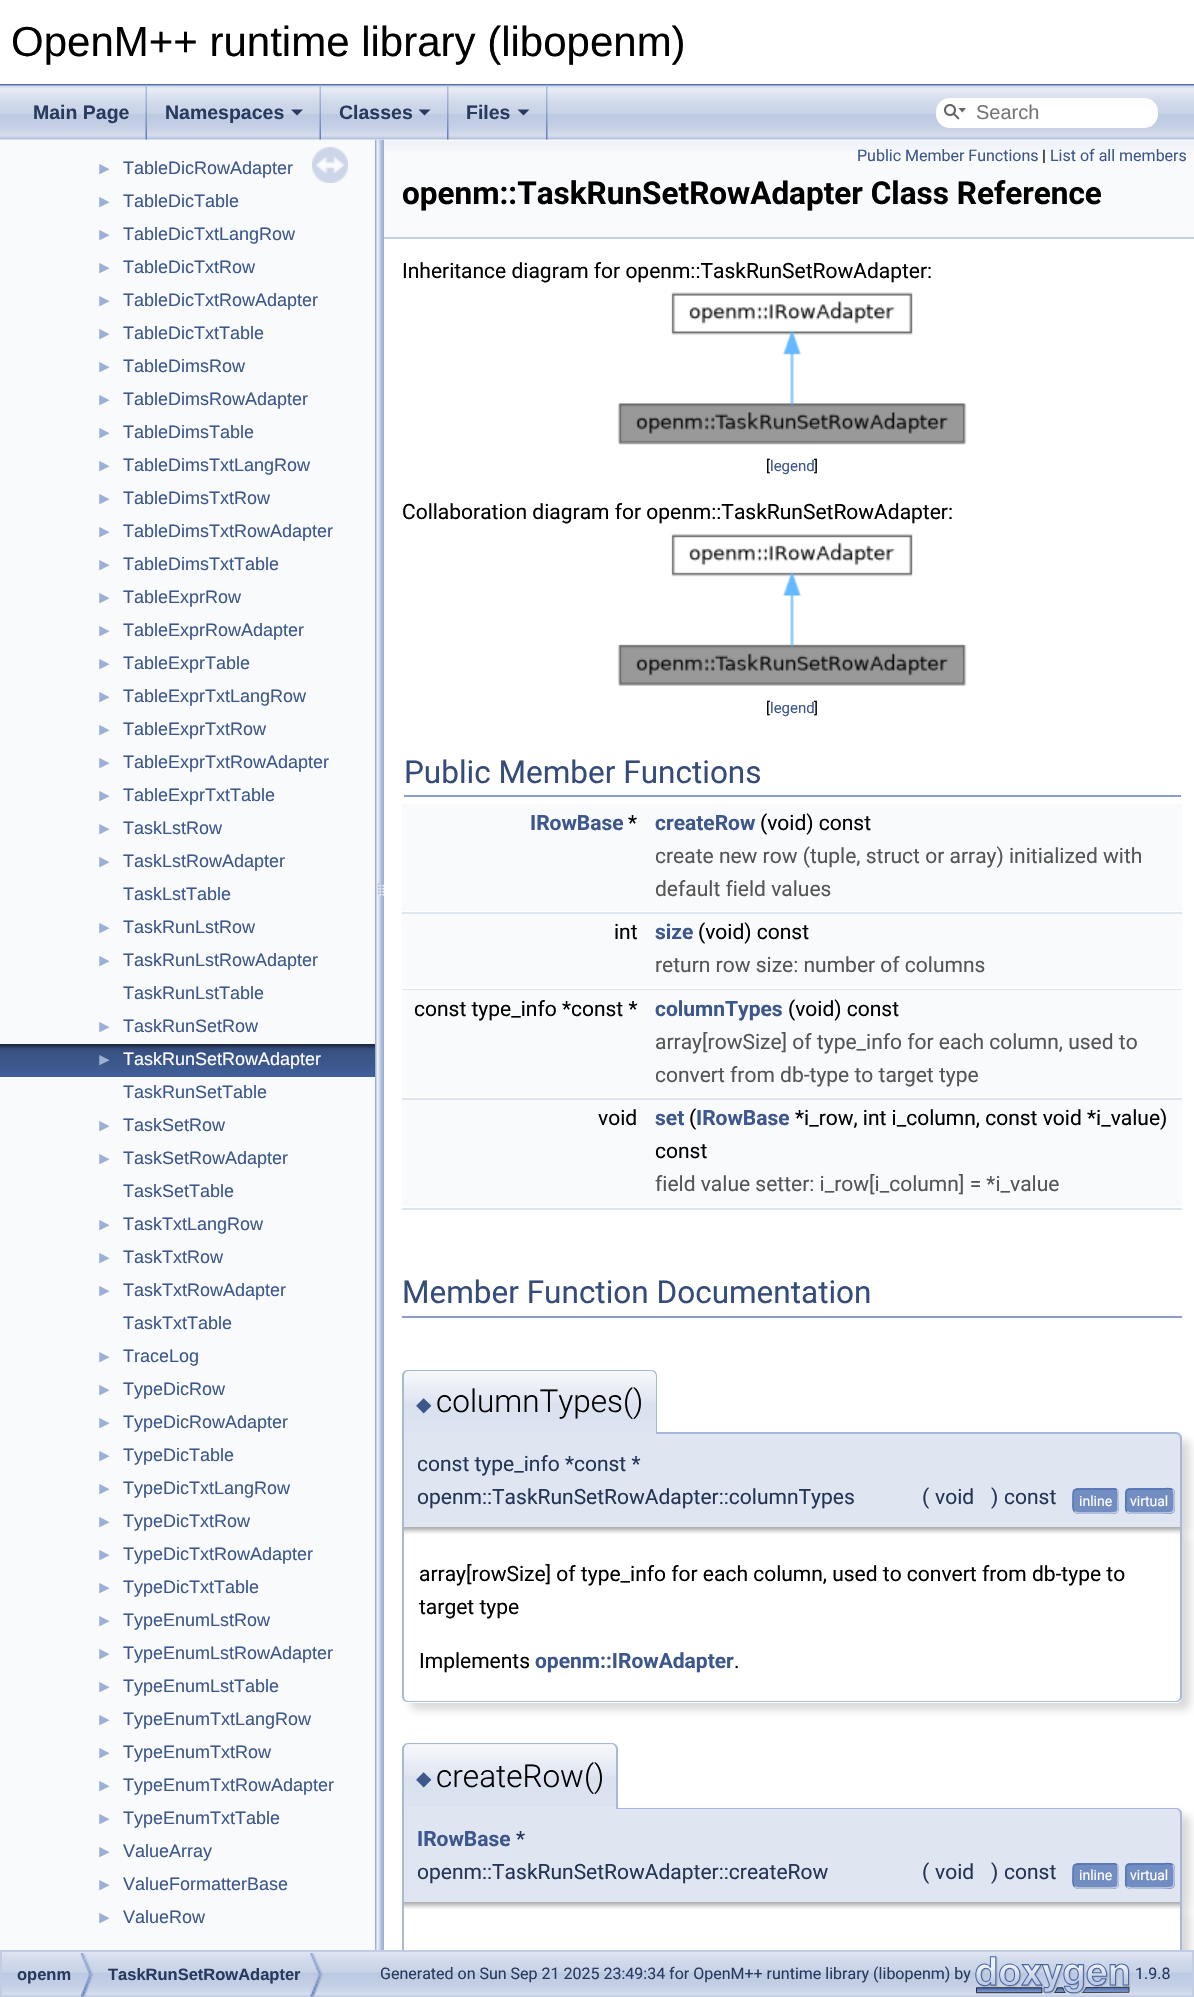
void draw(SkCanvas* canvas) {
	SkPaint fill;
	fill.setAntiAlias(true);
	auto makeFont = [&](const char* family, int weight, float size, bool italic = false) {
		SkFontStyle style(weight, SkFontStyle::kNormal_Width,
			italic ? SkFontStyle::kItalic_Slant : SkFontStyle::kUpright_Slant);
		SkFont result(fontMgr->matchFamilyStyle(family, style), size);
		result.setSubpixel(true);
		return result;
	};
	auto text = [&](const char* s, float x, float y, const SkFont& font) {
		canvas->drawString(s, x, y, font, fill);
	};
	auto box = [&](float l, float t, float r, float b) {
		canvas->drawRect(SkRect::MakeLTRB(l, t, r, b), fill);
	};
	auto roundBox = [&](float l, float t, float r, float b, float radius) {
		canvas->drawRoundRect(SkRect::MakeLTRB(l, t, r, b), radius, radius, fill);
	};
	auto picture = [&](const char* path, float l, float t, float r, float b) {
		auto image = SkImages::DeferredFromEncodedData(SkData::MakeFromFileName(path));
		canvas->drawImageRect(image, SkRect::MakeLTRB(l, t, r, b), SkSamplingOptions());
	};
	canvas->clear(0xFFFFFFFF);
	fill.setColor(0xFF5373B4);
	box(0, 84, 1194, 86);
	picture("image6.png", 375, 139, 384, 1950);
	picture("image0.png", 0, 85, 1194, 140);
	picture("image1.png", 145, 85, 147, 140);
	picture("image1.png", 319, 85, 321, 140);
	fill.setColor(0xFF283A5D);
	canvas->drawPath(SkPathBuilder().moveTo(291, 109.5f).lineTo(303, 109.5f).lineTo(297, 115.5f).close().detach(), fill);
	picture("image2.png", 447, 85, 449, 140);
	canvas->drawPath(SkPathBuilder().moveTo(418.5f, 109.5f).lineTo(430.5f, 109.5f).lineTo(424.5f, 115.5f).close().detach(), fill);
	picture("image2.png", 546, 85, 548, 140);
	canvas->drawPath(SkPathBuilder().moveTo(517.5f, 109.5f).lineTo(529.5f, 109.5f).lineTo(523.5f, 115.5f).close().detach(), fill);
	fill.setColor(0xFFFFFFFF);
	roundBox(936, 98, 1158, 128, 14);
	picture("image3.png", 944, 104, 966, 120);
	fill.setColor(0xFFF9FAFC);
	box(0, 140, 375, 1950);
	picture("image4.png", 312, 147, 348, 183);
	picture("image5.png", 0, 1044, 375, 1077);
	box(384, 140, 1194, 237);
	picture("image7.png", 384, 141, 1194, 151);
	fill.setColor(0xFFC4CFE5);
	box(384, 237, 1194, 239);
	picture("image8.png", 617, 292, 967, 445);
	picture("image9.png", 617, 533, 967, 686);
	fill.setColor(0xFF879ECB);
	box(404, 795, 1181, 797);
	fill.setColor(0xFFF9FAFC);
	box(402, 804, 1182, 839);
	box(402, 839, 1182, 911);
	fill.setColor(0xFFDEE4F0);
	box(402, 912, 1182, 914);
	fill.setColor(0xFFF9FAFC);
	box(402, 914, 1182, 948);
	box(402, 948, 1182, 987);
	fill.setColor(0xFFDEE4F0);
	box(402, 989, 1182, 990);
	fill.setColor(0xFFF9FAFC);
	box(402, 990, 1182, 1025);
	box(402, 1025, 1182, 1097);
	fill.setColor(0xFFDEE4F0);
	box(402, 1098, 1182, 1100);
	fill.setColor(0xFFF9FAFC);
	box(402, 1100, 1182, 1167);
	box(402, 1167, 1182, 1206);
	fill.setColor(0xFFDEE4F0);
	box(402, 1208, 1182, 1210);
	fill.setColor(0xFF879ECB);
	box(402, 1316, 1182, 1318);
	fill.setColor(0x26000000);
	fill.setMaskFilter(SkMaskFilter::MakeBlur(kNormal_SkBlurStyle, 4));
	canvas->drawRoundRect(SkRect::MakeLTRB(410, 1440, 1190, 1535), 6, 6, fill);
	fill.setMaskFilter(nullptr);
	fill.setColor(0xFFDFE5F1);
	canvas->drawPath(SkPathBuilder().moveTo(402, 1433).lineTo(1176, 1433).cubicTo(1179.5f, 1433, 1182, 1435.5f, 1182, 1439).lineTo(1182, 1527).lineTo(402, 1527).close().detach(), fill);
	fill.setColor(0xFFA8B8D9);
	canvas->drawPath(SkPathBuilder(SkPathFillType::kEvenOdd).moveTo(402, 1432).lineTo(1176, 1432).cubicTo(1179, 1432, 1182, 1435, 1182, 1438).lineTo(1182, 1527).lineTo(402, 1527).close().moveTo(404, 1434).lineTo(1176, 1434).cubicTo(1178, 1434, 1180, 1436, 1180, 1438).lineTo(1180, 1527).lineTo(404, 1527).close().detach(), fill);
	fill.setColor(0xFFE2E8F2);
	canvas->drawPath(SkPathBuilder().moveTo(408, 1370).lineTo(651, 1370).cubicTo(654.5f, 1370, 657, 1372.5f, 657, 1376).lineTo(657, 1434).lineTo(402, 1434).lineTo(402, 1376).cubicTo(402, 1372.5f, 404.5f, 1370, 408, 1370).close().detach(), fill);
	picture("image10.png", 402, 1371, 657, 1433);
	fill.setColor(0xFFA8B8D9);
	canvas->drawPath(SkPathBuilder(SkPathFillType::kEvenOdd).moveTo(408, 1370).lineTo(651, 1370).cubicTo(654, 1370, 657, 1372, 657, 1376).lineTo(657, 1434).lineTo(402, 1434).lineTo(402, 1376).cubicTo(402, 1372, 405, 1370, 408, 1370).close().moveTo(408, 1371).lineTo(651, 1371).cubicTo(653, 1371, 656, 1373, 656, 1376).lineTo(656, 1434).lineTo(404, 1434).lineTo(404, 1376).cubicTo(404, 1373, 406, 1371, 408, 1371).close().detach(), fill);
	fill.setColor(0xFF728DC1);
	roundBox(1073, 1488, 1119, 1514, 5);
	fill.setStyle(SkPaint::kStroke_Style);
	fill.setStrokeWidth(1.5f);
	fill.setColor(0xFFC4CFE5);
	canvas->drawPath(SkPathBuilder().moveTo(1117, 1490).cubicTo(1119.5f, 1492, 1118, 1498, 1118, 1501).cubicTo(1118, 1512.5f, 1120, 1513, 1108, 1513).lineTo(1083, 1513).cubicTo(1081.5f, 1513, 1076.5f, 1513.5f, 1074.5f, 1511.5f).detach(), fill);
	fill.setColor(0xFF5373B4);
	canvas->drawPath(SkPathBuilder().moveTo(1074.5f, 1511.5f).cubicTo(1072, 1509.5f, 1073, 1503.5f, 1073, 1501).cubicTo(1073, 1489, 1071.5f, 1489, 1083, 1489).lineTo(1108, 1489).cubicTo(1110, 1489, 1115, 1488, 1117, 1490).detach(), fill);
	fill.setStyle(SkPaint::kFill_Style);
	fill.setColor(0xFF728DC1);
	roundBox(1125, 1488, 1175, 1514, 5);
	fill.setStyle(SkPaint::kStroke_Style);
	fill.setColor(0xFFC4CFE5);
	canvas->drawPath(SkPathBuilder().moveTo(1172.5f, 1490).cubicTo(1175, 1492, 1174, 1498, 1174, 1501).cubicTo(1174, 1512.5f, 1175.5f, 1513, 1163, 1513).lineTo(1136, 1513).cubicTo(1134.5f, 1513, 1129, 1514, 1127, 1511.5f).detach(), fill);
	fill.setColor(0xFF5373B4);
	canvas->drawPath(SkPathBuilder().moveTo(1127, 1511.5f).cubicTo(1124.5f, 1509.5f, 1126, 1503.5f, 1126, 1501).cubicTo(1126, 1489, 1124, 1489, 1136, 1489).lineTo(1163, 1489).cubicTo(1165, 1489, 1170.5f, 1487.5f, 1172.5f, 1490).detach(), fill);
	fill.setStyle(SkPaint::kFill_Style);
	fill.setColor(0x26000000);
	fill.setMaskFilter(SkMaskFilter::MakeBlur(kNormal_SkBlurStyle, 4));
	canvas->drawRoundRect(SkRect::MakeLTRB(410, 1535, 1190, 1710), 6, 6, fill);
	fill.setMaskFilter(nullptr);
	fill.setColor(0xFFFFFFFF);
	canvas->drawPath(SkPathBuilder().moveTo(402, 1527).lineTo(1182, 1527).lineTo(1182, 1697).cubicTo(1182, 1700.5f, 1179.5f, 1703, 1176, 1703).lineTo(408, 1703).cubicTo(404.5f, 1703, 402, 1700.5f, 402, 1697).close().detach(), fill);
	picture("image11.png", 404, 1527, 1180, 1534);
	fill.setColor(0xFFA8B8D9);
	canvas->drawPath(SkPathBuilder(SkPathFillType::kEvenOdd).moveTo(402, 1527).lineTo(1182, 1527).lineTo(1182, 1696).cubicTo(1182, 1700, 1179, 1702, 1176, 1702).lineTo(408, 1702).cubicTo(405, 1702, 402, 1700, 402, 1696).close().moveTo(404, 1527).lineTo(1180, 1527).lineTo(1180, 1696).cubicTo(1180, 1699, 1178, 1701, 1176, 1701).lineTo(408, 1701).cubicTo(406, 1701, 404, 1699, 404, 1696).close().detach(), fill);
	fill.setColor(0x26000000);
	fill.setMaskFilter(SkMaskFilter::MakeBlur(kNormal_SkBlurStyle, 4));
	canvas->drawRoundRect(SkRect::MakeLTRB(410, 1815, 1190, 1910), 6, 6, fill);
	fill.setMaskFilter(nullptr);
	fill.setColor(0xFFDFE5F1);
	canvas->drawPath(SkPathBuilder().moveTo(402, 1808).lineTo(1176, 1808).cubicTo(1179.5f, 1808, 1182, 1810.5f, 1182, 1814).lineTo(1182, 1902).lineTo(402, 1902).close().detach(), fill);
	fill.setColor(0xFFA8B8D9);
	canvas->drawPath(SkPathBuilder(SkPathFillType::kEvenOdd).moveTo(402, 1808).lineTo(1176, 1808).cubicTo(1179, 1808, 1182, 1810, 1182, 1814).lineTo(1182, 1902).lineTo(402, 1902).close().moveTo(404, 1809).lineTo(1176, 1809).cubicTo(1178, 1809, 1180, 1811, 1180, 1814).lineTo(1180, 1902).lineTo(404, 1902).close().detach(), fill);
	fill.setColor(0xFFE2E8F2);
	canvas->drawPath(SkPathBuilder().moveTo(408, 1743).lineTo(612, 1743).cubicTo(615.5f, 1743, 618, 1745.5f, 618, 1749).lineTo(618, 1809).lineTo(402, 1809).lineTo(402, 1749).cubicTo(402, 1745.5f, 404.5f, 1743, 408, 1743).close().detach(), fill);
	picture("image12.png", 402, 1744, 618, 1807);
	fill.setColor(0xFFA8B8D9);
	canvas->drawPath(SkPathBuilder(SkPathFillType::kEvenOdd).moveTo(408, 1743).lineTo(612, 1743).cubicTo(615, 1743, 618, 1746, 618, 1749).lineTo(618, 1809).lineTo(402, 1809).lineTo(402, 1749).cubicTo(402, 1746, 405, 1743, 408, 1743).close().moveTo(408, 1744).lineTo(612, 1744).cubicTo(614, 1744, 616, 1747, 616, 1749).lineTo(616, 1809).lineTo(404, 1809).lineTo(404, 1749).cubicTo(404, 1747, 406, 1744, 408, 1744).close().detach(), fill);
	fill.setColor(0xFF728DC1);
	roundBox(1073, 1863, 1119, 1889, 5);
	fill.setStyle(SkPaint::kStroke_Style);
	fill.setColor(0xFFC4CFE5);
	canvas->drawPath(SkPathBuilder().moveTo(1117, 1865).cubicTo(1119.5f, 1867, 1118, 1873, 1118, 1876).cubicTo(1118, 1887.5f, 1120, 1888, 1108, 1888).lineTo(1083, 1888).cubicTo(1081.5f, 1888, 1076.5f, 1888.5f, 1074.5f, 1886.5f).detach(), fill);
	fill.setColor(0xFF5373B4);
	canvas->drawPath(SkPathBuilder().moveTo(1074.5f, 1886.5f).cubicTo(1072, 1884.5f, 1073, 1878.5f, 1073, 1876).cubicTo(1073, 1864, 1071.5f, 1864, 1083, 1864).lineTo(1108, 1864).cubicTo(1110, 1864, 1115, 1863, 1117, 1865).detach(), fill);
	fill.setStyle(SkPaint::kFill_Style);
	fill.setColor(0xFF728DC1);
	roundBox(1125, 1863, 1175, 1889, 5);
	fill.setStyle(SkPaint::kStroke_Style);
	fill.setColor(0xFFC4CFE5);
	canvas->drawPath(SkPathBuilder().moveTo(1172.5f, 1865).cubicTo(1175, 1867, 1174, 1873, 1174, 1876).cubicTo(1174, 1887.5f, 1175.5f, 1888, 1163, 1888).lineTo(1136, 1888).cubicTo(1134.5f, 1888, 1129, 1889, 1127, 1886.5f).detach(), fill);
	fill.setColor(0xFF5373B4);
	canvas->drawPath(SkPathBuilder().moveTo(1127, 1886.5f).cubicTo(1124.5f, 1884.5f, 1126, 1878.5f, 1126, 1876).cubicTo(1126, 1864, 1124, 1864, 1136, 1864).lineTo(1163, 1864).cubicTo(1165, 1864, 1170.5f, 1862.5f, 1172.5f, 1865).detach(), fill);
	fill.setStyle(SkPaint::kFill_Style);
	fill.setColor(0x26000000);
	fill.setMaskFilter(SkMaskFilter::MakeBlur(kNormal_SkBlurStyle, 4));
	canvas->drawRoundRect(SkRect::MakeLTRB(410, 1910, 1190, 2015), 6, 6, fill);
	fill.setMaskFilter(nullptr);
	fill.setColor(0xFFFFFFFF);
	box(404, 1902, 1180, 1950);
	picture("image11.png", 404, 1902, 1180, 1909);
	fill.setColor(0xFFA8B8D9);
	canvas->drawPath(SkPathBuilder(SkPathFillType::kEvenOdd).moveTo(402, 1902).lineTo(1182, 1902).lineTo(1182, 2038).cubicTo(1182, 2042, 1179, 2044, 1176, 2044).lineTo(408, 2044).cubicTo(405, 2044, 402, 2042, 402, 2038).close().moveTo(404, 1902).lineTo(1180, 1902).lineTo(1180, 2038).cubicTo(1180, 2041, 1178, 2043, 1176, 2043).lineTo(408, 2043).cubicTo(406, 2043, 404, 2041, 404, 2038).close().detach(), fill);
	picture("image13.png", 2, 1952, 1192, 1996);
	fill.setStyle(SkPaint::kStroke_Style);
	fill.setStrokeWidth(2);
	fill.setColor(0xFFC2CDE4);
	canvas->drawRect(SkRect::MakeLTRB(1, 1951, 1193, 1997), fill);
	picture("image14.png", 81, 1953, 93, 1997);
	picture("image15.png", 310, 1953, 323, 1997);
	picture("image16.png", 975, 1956, 1131, 1995);
	auto font1 = makeFont("Liberation Sans", 400, 42);
	fill.setStyle(SkPaint::kFill_Style);
	fill.setColor(0xFF000000);
	text("OpenM++ runtime library (libopenm)", 11, 56, font1);
	auto font2 = makeFont("Liberation Sans", 700, 19.5f);
	fill.setColor(0xFF283A5D);
	text("Main Page", 33, 119, font2);
	text("Namespaces", 165, 119, font2);
	text("Classes", 339, 119, font2);
	text("Files", 466, 119, font2);
	auto font3 = makeFont("Liberation Sans", 400, 20);
	fill.setColor(0xFF757575);
	text("Search", 976, 119, font3);
	auto font4 = makeFont("Liberation Sans", 400, 17);
	fill.setColor(0xFF9CAFD4);
	text("►", 96, 174, font4);
	auto font5 = makeFont("Liberation Sans", 400, 18);
	fill.setColor(0xFF3D578C);
	text("TableDicRowAdapter", 123, 174, font5);
	fill.setColor(0xFF9CAFD4);
	text("►", 96, 207, font4);
	fill.setColor(0xFF3D578C);
	text("TableDicTable", 123, 207, font5);
	fill.setColor(0xFF9CAFD4);
	text("►", 96, 240, font4);
	fill.setColor(0xFF3D578C);
	text("TableDicTxtLangRow", 123, 240, font5);
	fill.setColor(0xFF9CAFD4);
	text("►", 96, 273, font4);
	fill.setColor(0xFF3D578C);
	text("TableDicTxtRow", 123, 273, font5);
	fill.setColor(0xFF9CAFD4);
	text("►", 96, 306, font4);
	fill.setColor(0xFF3D578C);
	text("TableDicTxtRowAdapter", 123, 306, font5);
	fill.setColor(0xFF9CAFD4);
	text("►", 96, 339, font4);
	fill.setColor(0xFF3D578C);
	text("TableDicTxtTable", 123, 339, font5);
	fill.setColor(0xFF9CAFD4);
	text("►", 96, 372, font4);
	fill.setColor(0xFF3D578C);
	text("TableDimsRow", 123, 372, font5);
	fill.setColor(0xFF9CAFD4);
	text("►", 96, 405, font4);
	fill.setColor(0xFF3D578C);
	text("TableDimsRowAdapter", 123, 405, font5);
	fill.setColor(0xFF9CAFD4);
	text("►", 96, 438, font4);
	fill.setColor(0xFF3D578C);
	text("TableDimsTable", 123, 438, font5);
	fill.setColor(0xFF9CAFD4);
	text("►", 96, 471, font4);
	fill.setColor(0xFF3D578C);
	text("TableDimsTxtLangRow", 123, 471, font5);
	fill.setColor(0xFF9CAFD4);
	text("►", 96, 504, font4);
	fill.setColor(0xFF3D578C);
	text("TableDimsTxtRow", 123, 504, font5);
	fill.setColor(0xFF9CAFD4);
	text("►", 96, 537, font4);
	fill.setColor(0xFF3D578C);
	text("TableDimsTxtRowAdapter", 123, 537, font5);
	fill.setColor(0xFF9CAFD4);
	text("►", 96, 570, font4);
	fill.setColor(0xFF3D578C);
	text("TableDimsTxtTable", 123, 570, font5);
	fill.setColor(0xFF9CAFD4);
	text("►", 96, 603, font4);
	fill.setColor(0xFF3D578C);
	text("TableExprRow", 123, 603, font5);
	fill.setColor(0xFF9CAFD4);
	text("►", 96, 636, font4);
	fill.setColor(0xFF3D578C);
	text("TableExprRowAdapter", 123, 636, font5);
	fill.setColor(0xFF9CAFD4);
	text("►", 96, 669, font4);
	fill.setColor(0xFF3D578C);
	text("TableExprTable", 123, 669, font5);
	fill.setColor(0xFF9CAFD4);
	text("►", 96, 702, font4);
	fill.setColor(0xFF3D578C);
	text("TableExprTxtLangRow", 123, 702, font5);
	fill.setColor(0xFF9CAFD4);
	text("►", 96, 735, font4);
	fill.setColor(0xFF3D578C);
	text("TableExprTxtRow", 123, 735, font5);
	fill.setColor(0xFF9CAFD4);
	text("►", 96, 768, font4);
	fill.setColor(0xFF3D578C);
	text("TableExprTxtRowAdapter", 123, 768, font5);
	fill.setColor(0xFF9CAFD4);
	text("►", 96, 801, font4);
	fill.setColor(0xFF3D578C);
	text("TableExprTxtTable", 123, 801, font5);
	fill.setColor(0xFF9CAFD4);
	text("►", 96, 834, font4);
	fill.setColor(0xFF3D578C);
	text("TaskLstRow", 123, 834, font5);
	fill.setColor(0xFF9CAFD4);
	text("►", 96, 867, font4);
	fill.setColor(0xFF3D578C);
	text("TaskLstRowAdapter", 123, 867, font5);
	text("TaskLstTable", 123, 900, font5);
	fill.setColor(0xFF9CAFD4);
	text("►", 96, 933, font4);
	fill.setColor(0xFF3D578C);
	text("TaskRunLstRow", 123, 933, font5);
	fill.setColor(0xFF9CAFD4);
	text("►", 96, 966, font4);
	fill.setColor(0xFF3D578C);
	text("TaskRunLstRowAdapter", 123, 966, font5);
	text("TaskRunLstTable", 123, 999, font5);
	fill.setColor(0xFF9CAFD4);
	text("►", 96, 1032, font4);
	fill.setColor(0xFF3D578C);
	text("TaskRunSetRow", 123, 1032, font5);
	fill.setColor(0xFF9CAFD4);
	text("►", 96, 1065, font4);
	fill.setColor(0xFFFFFFFF);
	text("TaskRunSetRowAdapter", 123, 1065, font5);
	fill.setColor(0xFF3D578C);
	text("TaskRunSetTable", 123, 1098, font5);
	fill.setColor(0xFF9CAFD4);
	text("►", 96, 1131, font4);
	fill.setColor(0xFF3D578C);
	text("TaskSetRow", 123, 1131, font5);
	fill.setColor(0xFF9CAFD4);
	text("►", 96, 1164, font4);
	fill.setColor(0xFF3D578C);
	text("TaskSetRowAdapter", 123, 1164, font5);
	text("TaskSetTable", 123, 1197, font5);
	fill.setColor(0xFF9CAFD4);
	text("►", 96, 1230, font4);
	fill.setColor(0xFF3D578C);
	text("TaskTxtLangRow", 123, 1230, font5);
	fill.setColor(0xFF9CAFD4);
	text("►", 96, 1263, font4);
	fill.setColor(0xFF3D578C);
	text("TaskTxtRow", 123, 1263, font5);
	fill.setColor(0xFF9CAFD4);
	text("►", 96, 1296, font4);
	fill.setColor(0xFF3D578C);
	text("TaskTxtRowAdapter", 123, 1296, font5);
	text("TaskTxtTable", 123, 1329, font5);
	fill.setColor(0xFF9CAFD4);
	text("►", 96, 1362, font4);
	fill.setColor(0xFF3D578C);
	text("TraceLog", 123, 1362, font5);
	fill.setColor(0xFF9CAFD4);
	text("►", 96, 1395, font4);
	fill.setColor(0xFF3D578C);
	text("TypeDicRow", 123, 1395, font5);
	fill.setColor(0xFF9CAFD4);
	text("►", 96, 1428, font4);
	fill.setColor(0xFF3D578C);
	text("TypeDicRowAdapter", 123, 1428, font5);
	fill.setColor(0xFF9CAFD4);
	text("►", 96, 1461, font4);
	fill.setColor(0xFF3D578C);
	text("TypeDicTable", 123, 1461, font5);
	fill.setColor(0xFF9CAFD4);
	text("►", 96, 1494, font4);
	fill.setColor(0xFF3D578C);
	text("TypeDicTxtLangRow", 123, 1494, font5);
	fill.setColor(0xFF9CAFD4);
	text("►", 96, 1527, font4);
	fill.setColor(0xFF3D578C);
	text("TypeDicTxtRow", 123, 1527, font5);
	fill.setColor(0xFF9CAFD4);
	text("►", 96, 1560, font4);
	fill.setColor(0xFF3D578C);
	text("TypeDicTxtRowAdapter", 123, 1560, font5);
	fill.setColor(0xFF9CAFD4);
	text("►", 96, 1593, font4);
	fill.setColor(0xFF3D578C);
	text("TypeDicTxtTable", 123, 1593, font5);
	fill.setColor(0xFF9CAFD4);
	text("►", 96, 1626, font4);
	fill.setColor(0xFF3D578C);
	text("TypeEnumLstRow", 123, 1626, font5);
	fill.setColor(0xFF9CAFD4);
	text("►", 96, 1659, font4);
	fill.setColor(0xFF3D578C);
	text("TypeEnumLstRowAdapter", 123, 1659, font5);
	fill.setColor(0xFF9CAFD4);
	text("►", 96, 1692, font4);
	fill.setColor(0xFF3D578C);
	text("TypeEnumLstTable", 123, 1692, font5);
	fill.setColor(0xFF9CAFD4);
	text("►", 96, 1725, font4);
	fill.setColor(0xFF3D578C);
	text("TypeEnumTxtLangRow", 123, 1725, font5);
	fill.setColor(0xFF9CAFD4);
	text("►", 96, 1758, font4);
	fill.setColor(0xFF3D578C);
	text("TypeEnumTxtRow", 123, 1758, font5);
	fill.setColor(0xFF9CAFD4);
	text("►", 96, 1791, font4);
	fill.setColor(0xFF3D578C);
	text("TypeEnumTxtRowAdapter", 123, 1791, font5);
	fill.setColor(0xFF9CAFD4);
	text("►", 96, 1824, font4);
	fill.setColor(0xFF3D578C);
	text("TypeEnumTxtTable", 123, 1824, font5);
	fill.setColor(0xFF9CAFD4);
	text("►", 96, 1857, font4);
	fill.setColor(0xFF3D578C);
	text("ValueArray", 123, 1857, font5);
	fill.setColor(0xFF9CAFD4);
	text("►", 96, 1890, font4);
	fill.setColor(0xFF3D578C);
	text("ValueFormatterBase", 123, 1890, font5);
	fill.setColor(0xFF9CAFD4);
	text("►", 96, 1923, font4);
	fill.setColor(0xFF3D578C);
	text("ValueRow", 123, 1923, font5);
	auto font6 = makeFont("Roboto", 400, 16);
	text("Public Member Functions", 857, 161, font6);
	fill.setColor(0xFF000000);
	text("|", 1042, 161, font6);
	fill.setColor(0xFF3D578C);
	text("List of all members", 1050, 161, font6);
	auto font7 = makeFont("Roboto", 700, 31.5f);
	fill.setColor(0xFF000000);
	text("openm::TaskRunSetRowAdapter Class Reference", 402, 204, font7);
	auto font8 = makeFont("Roboto", 400, 21);
	text("Inheritance diagram for openm::TaskRunSetRowAdapter:", 402, 278, font8);
	auto font9 = makeFont("Roboto", 400, 15);
	text("[", 766, 471, font9);
	fill.setColor(0xFF3D578C);
	text("legend", 770, 471, font9);
	fill.setColor(0xFF000000);
	text("]", 814, 471, font9);
	text("Collaboration diagram for openm::TaskRunSetRowAdapter:", 402, 519, font8);
	text("[", 766, 713, font9);
	fill.setColor(0xFF3D578C);
	text("legend", 770, 713, font9);
	fill.setColor(0xFF000000);
	text("]", 814, 713, font9);
	auto font10 = makeFont("Roboto", 400, 31.5f);
	fill.setColor(0xFF354C7B);
	text("Public Member Functions", 404, 783, font10);
	auto font11 = makeFont("Roboto", 700, 21);
	fill.setColor(0xFF3D578C);
	text("IRowBase", 530, 830, font11);
	fill.setColor(0xFF000000);
	text("*", 628, 830, font8);
	fill.setColor(0xFF3D578C);
	text("createRow", 655, 830, font11);
	fill.setColor(0xFF000000);
	text("(void) const", 760, 830, font8);
	fill.setColor(0xFF555555);
	text("create new row (tuple, struct or array) initialized with", 655, 863, font8);
	text("default field values", 655, 896, font8);
	fill.setColor(0xFF000000);
	text("int", 614, 939, font8);
	fill.setColor(0xFF3D578C);
	text("size", 655, 939, font11);
	fill.setColor(0xFF000000);
	text("(void) const", 698, 939, font8);
	fill.setColor(0xFF555555);
	text("return row size: number of columns", 655, 972, font8);
	fill.setColor(0xFF000000);
	text("const type_info *const *", 414, 1016, font8);
	fill.setColor(0xFF3D578C);
	text("columnTypes", 655, 1016, font11);
	fill.setColor(0xFF000000);
	text("(void) const", 788, 1016, font8);
	fill.setColor(0xFF555555);
	text("array[rowSize] of type_info for each column, used to", 655, 1049, font8);
	text("convert from db-type to target type", 655, 1082, font8);
	fill.setColor(0xFF000000);
	text("void", 598, 1125, font8);
	fill.setColor(0xFF3D578C);
	text("set", 655, 1125, font11);
	fill.setColor(0xFF000000);
	text("(", 689, 1125, font8);
	fill.setColor(0xFF3D578C);
	text("IRowBase", 696, 1125, font11);
	fill.setColor(0xFF000000);
	text("*i_row, int i_column, const void *i_value)", 795, 1125, font8);
	text("const", 655, 1158, font8);
	fill.setColor(0xFF555555);
	text("field value setter: i_row[i_column] = *i_value", 655, 1191, font8);
	fill.setColor(0xFF354C7B);
	text("Member Function Documentation", 402, 1303, font10);
	auto font12 = makeFont("DejaVu Sans", 400, 20);
	fill.setColor(0xFF3D578C);
	text("◆", 416, 1411, font12);
	auto font13 = makeFont("Roboto", 300, 31.5f);
	fill.setColor(0xFF000000);
	text("columnTypes()", 436, 1412, font13);
	fill.setColor(0xFF253555);
	text("const type_info *const *", 417, 1471, font8);
	text("openm::TaskRunSetRowAdapter::columnTypes", 417, 1504, font8);
	text("(", 922, 1504, font8);
	text("void", 935, 1504, font8);
	text(")", 991, 1504, font8);
	text("const", 1004, 1504, font8);
	auto font14 = makeFont("Roboto", 400, 14);
	fill.setColor(0xFFFFFFFF);
	text("inline", 1079, 1506, font14);
	text("virtual", 1130, 1506, font14);
	fill.setColor(0xFF000000);
	text("array[rowSize] of type_info for each column, used to convert from db-type to", 419, 1581, font8);
	text("target type", 419, 1614, font8);
	text("Implements", 419, 1668, font8);
	fill.setColor(0xFF3D578C);
	text("openm::IRowAdapter", 535, 1668, font11);
	fill.setColor(0xFF000000);
	text(".", 734, 1668, font8);
	fill.setColor(0xFF3D578C);
	text("◆", 416, 1785, font12);
	fill.setColor(0xFF000000);
	text("createRow()", 436, 1787, font13);
	fill.setColor(0xFF3D578C);
	text("IRowBase", 417, 1846, font11);
	fill.setColor(0xFF253555);
	text("*", 516, 1846, font8);
	text("openm::TaskRunSetRowAdapter::createRow", 417, 1879, font8);
	text("(", 922, 1879, font8);
	text("void", 935, 1879, font8);
	text(")", 991, 1879, font8);
	text("const", 1004, 1879, font8);
	fill.setColor(0xFFFFFFFF);
	text("inline", 1079, 1880, font14);
	text("virtual", 1130, 1880, font14);
	auto font15 = makeFont("Liberation Sans", 700, 16.5f);
	fill.setColor(0xFF283A5D);
	text("openm", 17, 1980, font15);
	text("TaskRunSetRowAdapter", 108, 1980, font15);
	text("Generated on Sun Sep 21 2025 23:49:34 for OpenM++ runtime library (libopenm) by", 380, 1979, font6);
	text("1.9.8", 1135, 1979, font6);
}
